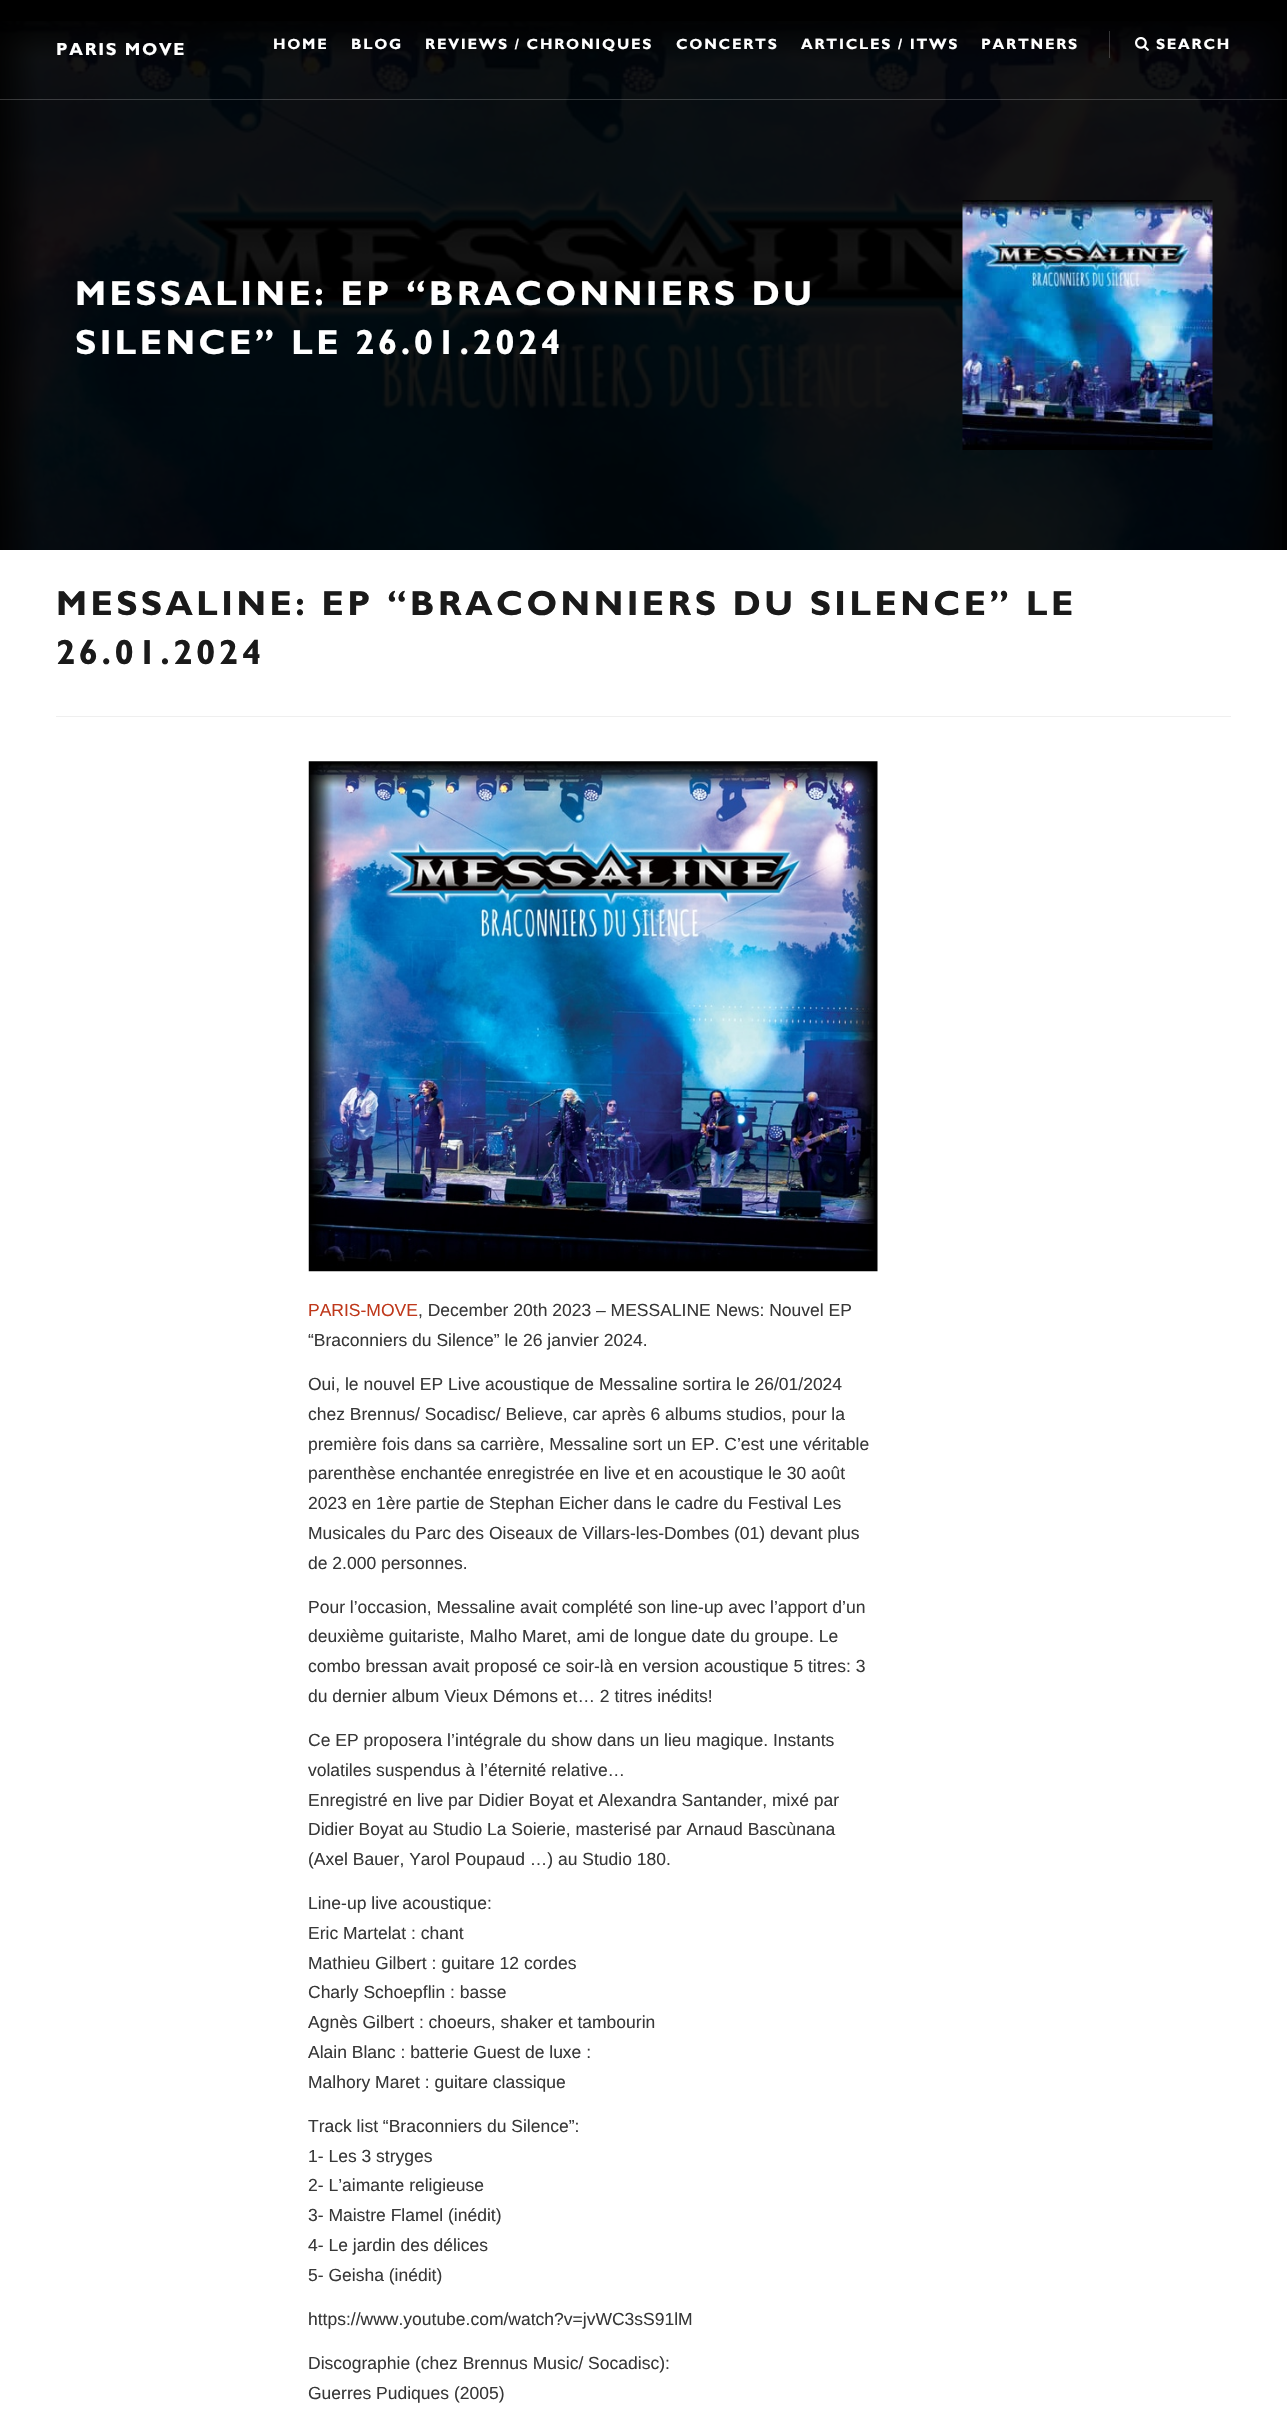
void draw(SkCanvas* canvas) {
	SkPaint fill;
	fill.setAntiAlias(true);
	auto makeFont = [&](const char* family, int weight, float size, bool italic = false) {
		SkFontStyle style(weight, SkFontStyle::kNormal_Width,
			italic ? SkFontStyle::kItalic_Slant : SkFontStyle::kUpright_Slant);
		SkFont result(fontMgr->matchFamilyStyle(family, style), size);
		result.setSubpixel(true);
		return result;
	};
	auto text = [&](const char* s, float x, float y, const SkFont& font) {
		canvas->drawString(s, x, y, font, fill);
	};
	auto spacedText = [&](const char* s, float x, float y, const SkFont& font, const SkPaint& ink, float letter, float word) {
		std::vector<SkGlyphID> glyphs(font.countText(s, strlen(s), SkTextEncoding::kUTF8));
		std::vector<float> xs(glyphs.size());
		font.textToGlyphs(s, strlen(s), SkTextEncoding::kUTF8, glyphs);
		font.getXPos(glyphs, xs, x);
		float extra = 0;
		for (size_t i = 0; i < glyphs.size(); i++) {
			xs[i] += extra;
			extra += letter + word * (glyphs[i] == font.unicharToGlyph(' '));
		}
		canvas->drawTextBlob(SkTextBlob::MakeFromPosHGlyphs(glyphs, xs, y, font), 0, 0, ink);
	};
	auto box = [&](float l, float t, float r, float b) {
		canvas->drawRect(SkRect::MakeLTRB(l, t, r, b), fill);
	};
	auto picture = [&](const char* path, float l, float t, float r, float b) {
		auto image = SkImages::DeferredFromEncodedData(SkData::MakeFromFileName(path));
		canvas->drawImageRect(image, SkRect::MakeLTRB(l, t, r, b), SkSamplingOptions());
	};
	canvas->clear(0xFFFFFFFF);
	fill.setColor(0xFF000000);
	box(0, 0, 1287, 550);
	picture("image1.png", 0, 21, 1282, 550);
	fill.setColor(0x33FFFFFF);
	box(0, 99, 1287, 100);
	box(1109, 31, 1110, 58);
	picture("image0.png", 1135, 37, 1149, 51);
	picture("image2.png", 962, 200, 1213, 450);
	fill.setColor(0xFFEFEFEF);
	box(56, 716, 1231, 717);
	picture("image3.png", 308, 761, 878, 1272);
	auto font1 = makeFont("Gill Sans", 700, 17.5f);
	fill.setColor(0xFFFFFFFF);
	spacedText("PARIS MOVE", 56, 55, font1, fill, 1.75f, 0);
	auto font2 = makeFont("Gill Sans", 700, 15);
	spacedText("HOME", 273, 49, font2, fill, 1.75f, 0);
	spacedText("BLOG", 351, 49, font2, fill, 1.75f, 0);
	spacedText("REVIEWS / CHRONIQUES", 425, 49, font2, fill, 1.75f, 0);
	spacedText("CONCERTS", 676, 49, font2, fill, 1.75f, 0);
	spacedText("ARTICLES / ITWS", 801, 49, font2, fill, 1.75f, 0);
	spacedText("PARTNERS", 981, 49, font2, fill, 1.75f, 0);
	spacedText("SEARCH", 1156, 49, font2, fill, 1.75f, 0);
	auto font3 = makeFont("Gill Sans", 700, 35);
	spacedText("MESSALINE: EP “BRACONNIERS DU", 75, 305, font3, fill, 3.5f, 0);
	spacedText("SILENCE” LE 26.01.2024", 75, 354, font3, fill, 3.5f, 0);
	fill.setColor(0xFF1A1A1A);
	spacedText("MESSALINE: EP “BRACONNIERS DU SILENCE” LE", 56, 615, font3, fill, 3.5f, 0);
	spacedText("26.01.2024", 56, 664, font3, fill, 3.5f, 0);
	auto font4 = makeFont("Liberation Sans", 400, 17.5f);
	fill.setColor(0xFFBF381B);
	text("PARIS-MOVE", 308, 1316, font4);
	fill.setColor(0xFF383838);
	text(", December 20th 2023 – MESSALINE News: Nouvel EP", 418, 1316, font4);
	text("“Braconniers du Silence” le 26 janvier 2024.", 308, 1346, font4);
	text("Oui, le nouvel EP Live acoustique de Messaline sortira le 26/01/2024", 308, 1390, font4);
	text("chez Brennus/ Socadisc/ Believe, car après 6 albums studios, pour la", 308, 1420, font4);
	text("première fois dans sa carrière, Messaline sort un EP. C’est une véritable", 308, 1450, font4);
	text("parenthèse enchantée enregistrée en live et en acoustique le 30 août", 308, 1479, font4);
	text("2023 en 1ère partie de Stephan Eicher dans le cadre du Festival Les", 308, 1509, font4);
	text("Musicales du Parc des Oiseaux de Villars-les-Dombes (01) devant plus", 308, 1539, font4);
	text("de 2.000 personnes.", 308, 1569, font4);
	text("Pour l’occasion, Messaline avait complété son line-up avec l’apport d’un", 308, 1613, font4);
	text("deuxième guitariste, Malho Maret, ami de longue date du groupe. Le", 308, 1642, font4);
	text("combo bressan avait proposé ce soir-là en version acoustique 5 titres: 3", 308, 1672, font4);
	text("du dernier album Vieux Démons et… 2 titres inédits!", 308, 1702, font4);
	text("Ce EP proposera l’intégrale du show dans un lieu magique. Instants", 308, 1746, font4);
	text("volatiles suspendus à l’éternité relative…", 308, 1776, font4);
	text("Enregistré en live par Didier Boyat et Alexandra Santander, mixé par", 308, 1806, font4);
	text("Didier Boyat au Studio La Soierie, masterisé par Arnaud Bascùnana", 308, 1835, font4);
	text("(Axel Bauer, Yarol Poupaud …) au Studio 180.", 308, 1865, font4);
	text("Line-up live acoustique:", 308, 1909, font4);
	text("Eric Martelat : chant", 308, 1939, font4);
	text("Mathieu Gilbert : guitare 12 cordes", 308, 1969, font4);
	text("Charly Schoepflin : basse", 308, 1998, font4);
	text("Agnès Gilbert : choeurs, shaker et tambourin", 308, 2028, font4);
	text("Alain Blanc : batterie Guest de luxe :", 308, 2058, font4);
	text("Malhory Maret : guitare classique", 308, 2088, font4);
	text("Track list “Braconniers du Silence”:", 308, 2132, font4);
	text("1- Les 3 stryges", 308, 2162, font4);
	text("2- L’aimante religieuse", 308, 2191, font4);
	text("3- Maistre Flamel (inédit)", 308, 2221, font4);
	text("4- Le jardin des délices", 308, 2251, font4);
	text("5- Geisha (inédit)", 308, 2281, font4);
	text("https://www.youtube.com/watch?v=jvWC3sS91lM", 308, 2325, font4);
	text("Discographie (chez Brennus Music/ Socadisc):", 308, 2369, font4);
	text("Guerres Pudiques (2005)", 308, 2399, font4);
}
